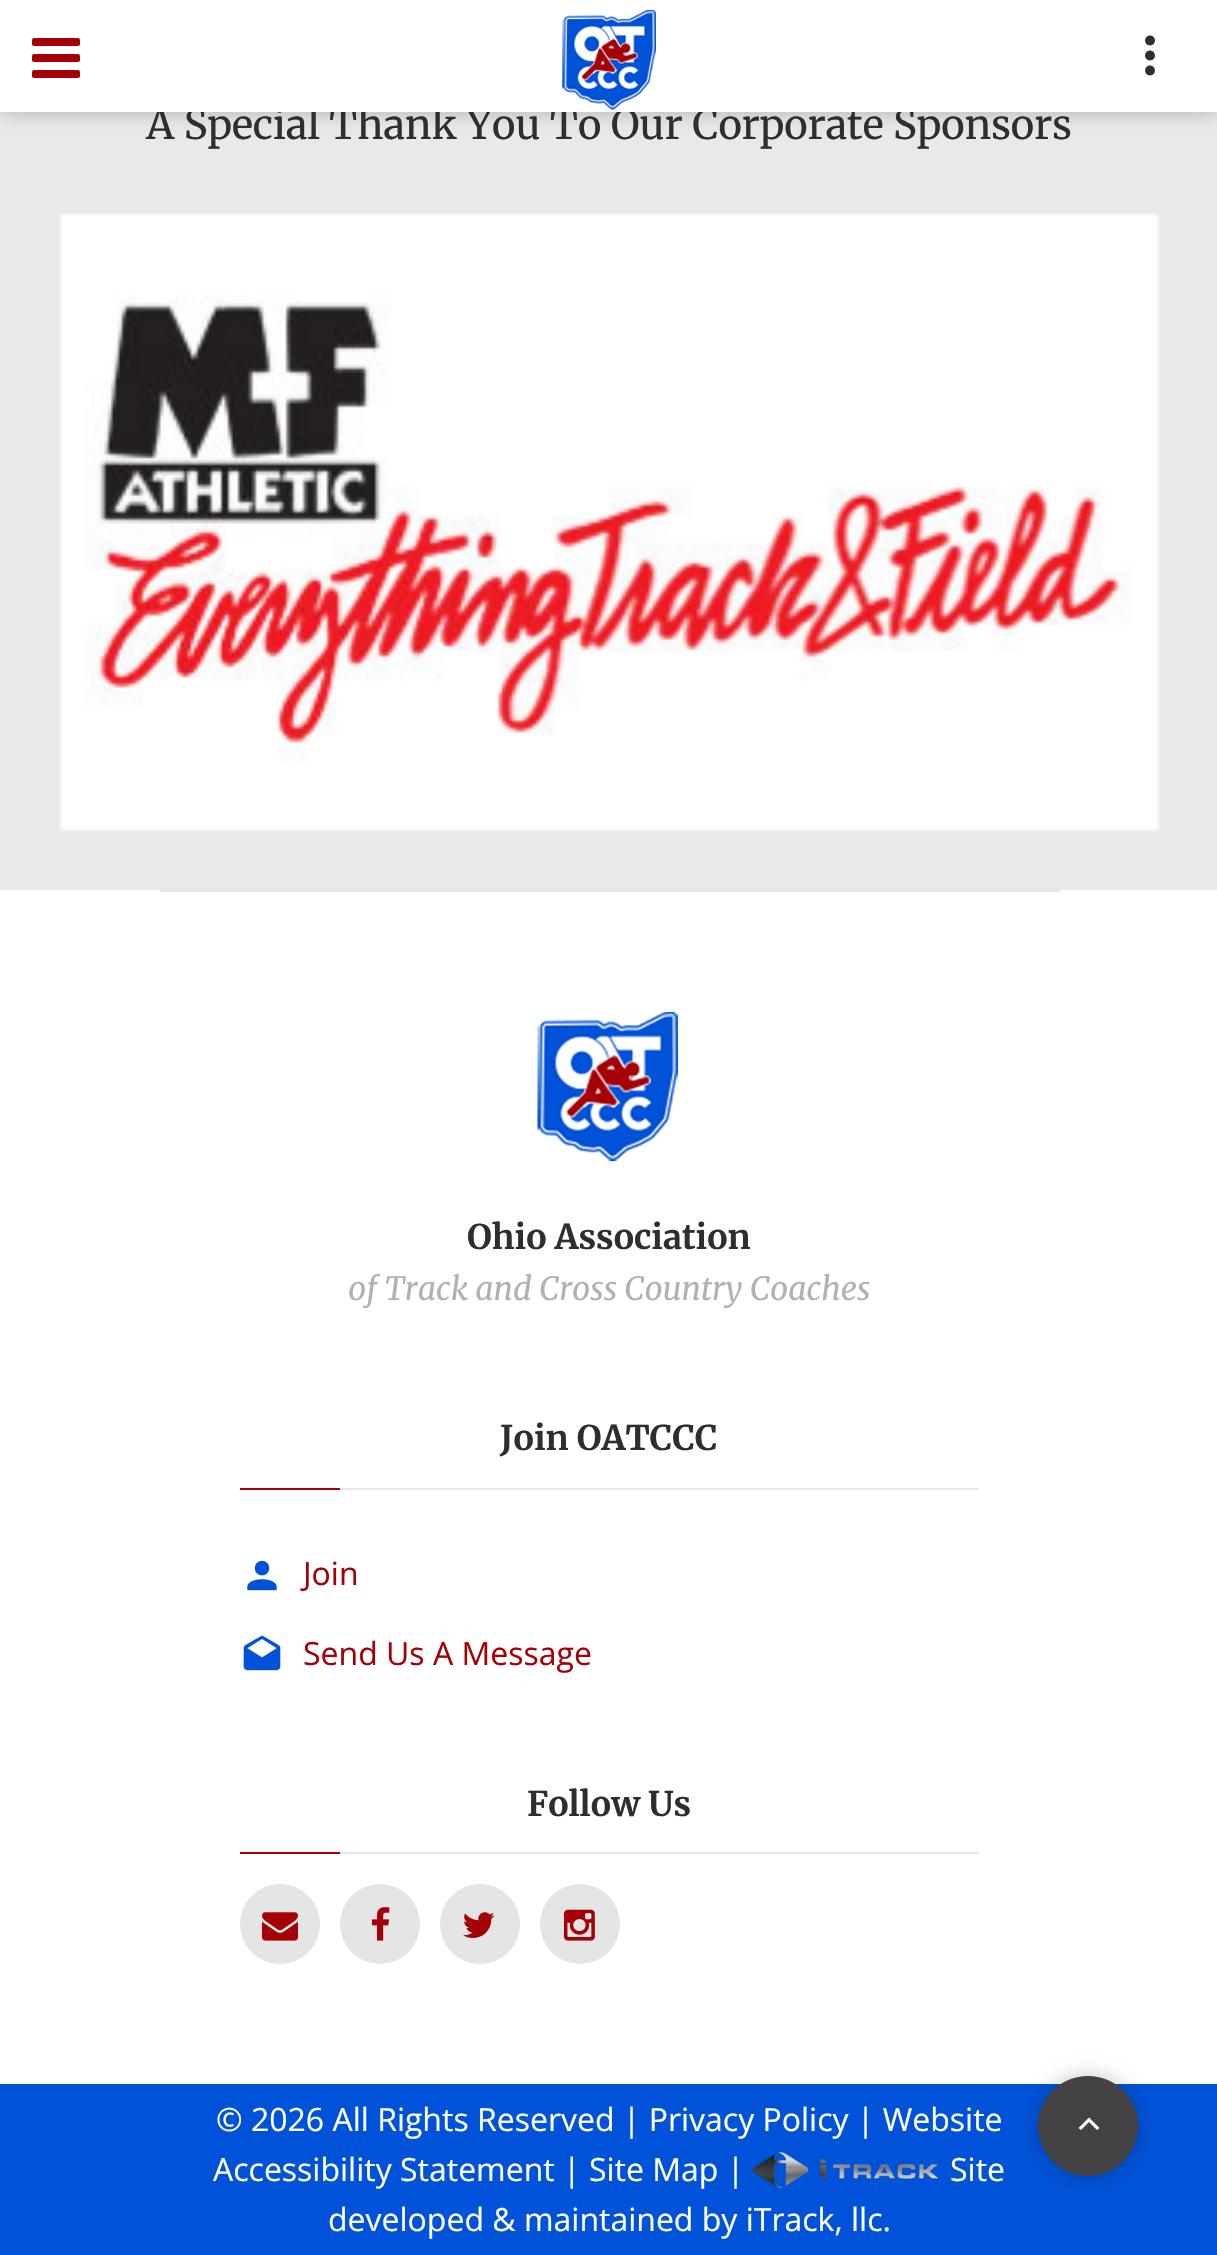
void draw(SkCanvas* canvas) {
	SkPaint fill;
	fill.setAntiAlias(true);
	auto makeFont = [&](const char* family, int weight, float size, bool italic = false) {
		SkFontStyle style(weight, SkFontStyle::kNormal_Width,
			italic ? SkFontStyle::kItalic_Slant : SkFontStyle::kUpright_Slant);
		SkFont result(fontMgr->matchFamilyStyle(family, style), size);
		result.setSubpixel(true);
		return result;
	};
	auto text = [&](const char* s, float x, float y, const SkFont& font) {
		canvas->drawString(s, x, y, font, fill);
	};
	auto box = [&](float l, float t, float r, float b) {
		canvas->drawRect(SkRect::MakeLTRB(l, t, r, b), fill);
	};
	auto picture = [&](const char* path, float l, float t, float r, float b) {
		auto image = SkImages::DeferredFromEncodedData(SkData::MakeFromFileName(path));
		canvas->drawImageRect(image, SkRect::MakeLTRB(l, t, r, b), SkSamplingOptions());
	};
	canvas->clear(0xFFFFFFFF);
	fill.setColor(0xFFE9E9E9);
	box(0, 112, 1217, 890);
	fill.setColor(0x59434345);
	fill.setMaskFilter(SkMaskFilter::MakeBlur(kNormal_SkBlurStyle, 10));
	canvas->drawRect(SkRect::MakeLTRB(0, 0, 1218, 112), fill);
	fill.setMaskFilter(nullptr);
	picture("image3.png", 59, 213, 1160, 832);
	fill.setColor(0xFFE5E5E5);
	box(160, 890, 1060, 892);
	picture("image4.png", 537, 1012, 678, 1162);
	box(340, 1488, 978, 1490);
	fill.setColor(0xFFA60007);
	box(240, 1488, 340, 1490);
	picture("image5.png", 247, 1560, 277, 1591);
	picture("image6.png", 243, 1635, 281, 1671);
	fill.setColor(0xFFE5E5E5);
	box(340, 1852, 978, 1854);
	fill.setColor(0xFFA60007);
	box(240, 1852, 340, 1854);
	fill.setColor(0xFFE5E5E5);
	canvas->drawCircle(280, 1924, 40, fill);
	picture("image7.png", 262, 1912, 298, 1941);
	canvas->drawCircle(380, 1924, 40, fill);
	picture("image8.png", 371, 1907, 390, 1941);
	canvas->drawCircle(480, 1924, 40, fill);
	picture("image9.png", 463, 1912, 495, 1938);
	canvas->drawCircle(580, 1924, 40, fill);
	picture("image10.png", 564, 1909, 595, 1941);
	fill.setColor(0xFF0053D8);
	box(0, 2084, 1217, 2255);
	picture("image11.png", 752, 2152, 939, 2188);
	fill.setColor(0x38000000);
	fill.setMaskFilter(SkMaskFilter::MakeBlur(kNormal_SkBlurStyle, 10));
	canvas->drawRoundRect(SkRect::MakeLTRB(1038, 2076, 1138, 2176), 50, 50, fill);
	fill.setMaskFilter(nullptr);
	fill.setColor(0xFF434345);
	canvas->drawCircle(1088, 2126, 50, fill);
	fill.setColor(0xFFFFFFFF);
	canvas->drawPath(SkPathBuilder().moveTo(1081, 2130).lineTo(1089, 2122).lineTo(1097, 2130).lineTo(1099.5f, 2128).lineTo(1089, 2117.5f).lineTo(1078.5f, 2128).close().detach(), fill);
	auto font1 = makeFont("Merriweather", 400, 40);
	fill.setColor(0xFF2D2E2E);
	text("A Special Thank You To Our Corporate Sponsors", 146, 139, font1);
	fill.setColor(0xFFFFFFFF);
	box(0, 0, 1217, 112);
	picture("image2.png", 1145, 35, 1155, 76);
	picture("image0.png", 32, 38, 80, 78);
	picture("image1.png", 562, 10, 656, 110);
	auto font2 = makeFont("Merriweather", 700, 34);
	fill.setColor(0xFF2D2E2E);
	text("Ohio Association", 467, 1249, font2);
	auto font3 = makeFont("Merriweather", 400, 32, true);
	fill.setColor(0xFFB1B1B1);
	text("of Track and Cross Country Coaches", 348, 1300, font3);
	fill.setColor(0xFF2D2E2E);
	text("Join OATCCC", 500, 1450, font2);
	auto font4 = makeFont("Open Sans", 400, 32);
	fill.setColor(0xFFA60007);
	text("Join", 303, 1585, font4);
	text("Send Us A Message", 303, 1665, font4);
	fill.setColor(0xFF2D2E2E);
	text("Follow Us", 527, 1816, font2);
	fill.setColor(0xFFFFFFFF);
	text("© 2026 All Rights Reserved | Privacy Policy | Website", 216, 2131, font4);
	text("Accessibility Statement | Site Map |", 213, 2181, font4);
	text("Site", 950, 2181, font4);
	text("developed & maintained by iTrack, llc.", 328, 2231, font4);
}
